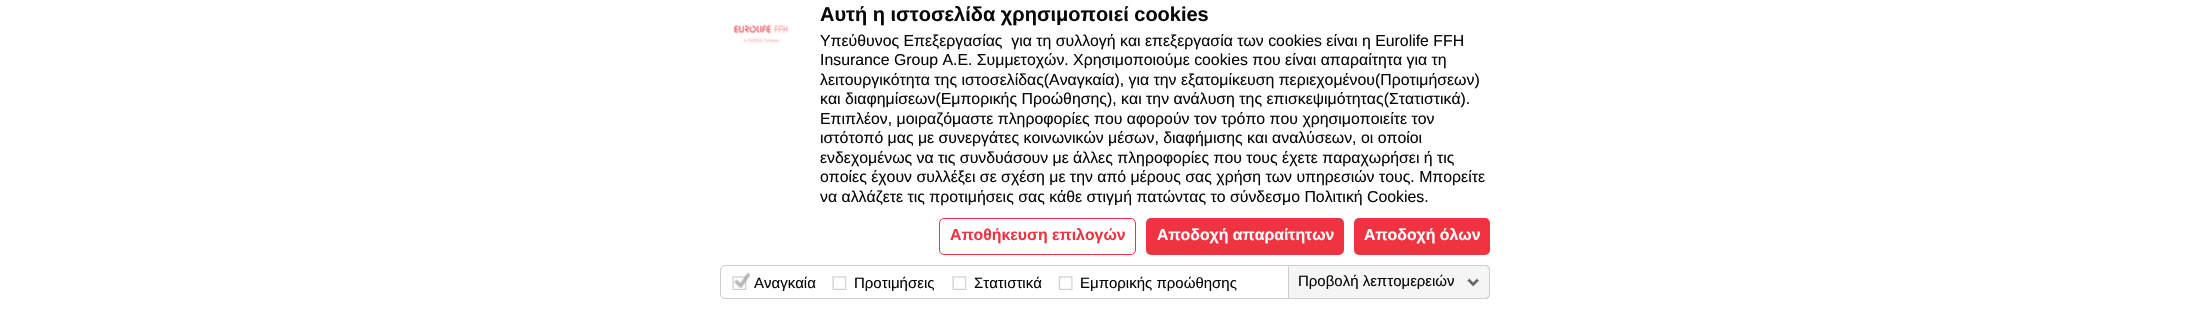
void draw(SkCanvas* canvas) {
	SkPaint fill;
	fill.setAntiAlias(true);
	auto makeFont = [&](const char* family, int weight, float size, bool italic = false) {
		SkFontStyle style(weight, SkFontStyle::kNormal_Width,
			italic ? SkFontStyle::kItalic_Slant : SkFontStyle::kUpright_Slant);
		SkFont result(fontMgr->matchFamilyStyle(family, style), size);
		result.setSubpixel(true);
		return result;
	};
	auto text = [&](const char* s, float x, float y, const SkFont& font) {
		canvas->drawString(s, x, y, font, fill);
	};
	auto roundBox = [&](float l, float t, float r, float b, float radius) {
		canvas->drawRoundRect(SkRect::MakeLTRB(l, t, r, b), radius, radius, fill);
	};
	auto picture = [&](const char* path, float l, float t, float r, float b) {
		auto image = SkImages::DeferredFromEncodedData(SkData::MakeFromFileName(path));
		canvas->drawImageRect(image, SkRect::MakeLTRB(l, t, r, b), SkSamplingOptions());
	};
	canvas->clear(0xFFFFFFFF);
	picture("image0.png", 733, 24, 789, 44);
	fill.setStyle(SkPaint::kStroke_Style);
	fill.setStrokeWidth(1);
	fill.setColor(0xFFEF3340);
	canvas->drawRoundRect(SkRect::MakeLTRB(939.5f, 218.5f, 1135.5f, 254.5f), 4.5f, 4.5f, fill);
	fill.setStyle(SkPaint::kFill_Style);
	roundBox(1146, 218, 1344, 255, 5);
	roundBox(1354, 218, 1490, 255, 5);
	fill.setStyle(SkPaint::kStroke_Style);
	fill.setColor(0xFFCCCCCC);
	canvas->drawPath(SkPathBuilder().moveTo(725, 265.5f).lineTo(1288.5f, 265.5f).lineTo(1288.5f, 298.5f).lineTo(725, 298.5f).cubicTo(722.5f, 298.5f, 720.5f, 296.5f, 720.5f, 294).lineTo(720.5f, 270).cubicTo(720.5f, 267.5f, 722.5f, 265.5f, 725, 265.5f).close().detach(), fill);
	picture("image1.png", 732, 272, 750, 290);
	picture("image2.png", 832, 276, 847, 290);
	picture("image2.png", 952, 276, 967, 290);
	picture("image3.png", 1058, 276, 1073, 290);
	fill.setStyle(SkPaint::kFill_Style);
	fill.setColor(0xFFF5F5F5);
	canvas->drawPath(SkPathBuilder().moveTo(1289, 265).lineTo(1485, 265).cubicTo(1488, 265, 1490, 267, 1490, 270).lineTo(1490, 294).cubicTo(1490, 297, 1488, 299, 1485, 299).lineTo(1289, 299).close().detach(), fill);
	picture("image4.png", 1467, 278, 1479, 287);
	fill.setColor(0xFFCCCCCC);
	canvas->drawPath(SkPathBuilder(SkPathFillType::kEvenOdd).moveTo(1289, 265).lineTo(1485, 265).cubicTo(1488, 265, 1490, 267, 1490, 270).lineTo(1490, 294).cubicTo(1490, 297, 1488, 299, 1485, 299).lineTo(1289, 299).close().moveTo(1289, 266).lineTo(1485, 266).cubicTo(1487, 266, 1489, 268, 1489, 270).lineTo(1489, 294).cubicTo(1489, 296, 1487, 298, 1485, 298).lineTo(1289, 298).close().detach(), fill);
	auto font1 = makeFont("Liberation Sans", 700, 20);
	fill.setColor(0xFF080808);
	text("Αυτή η ιστοσελίδα χρησιμοποιεί cookies", 820, 21, font1);
	auto font2 = makeFont("Liberation Sans", 400, 15.85f);
	text("Υπεύθυνος Επεξεργασίας  για τη συλλογή και επεξεργασία των cookies είναι η Eurolife FFH", 820, 46, font2);
	text("Insurance Group Α.Ε. Συμμετοχών. Χρησιμοποιούμε cookies που είναι απαραίτητα για τη", 820, 65, font2);
	text("λειτουργικότητα της ιστοσελίδας(Αναγκαία), για την εξατομίκευση περιεχομένου(Προτιμήσεων)", 820, 85, font2);
	text("και διαφημίσεων(Εμπορικής Προώθησης), και την ανάλυση της επισκεψιμότητας(Στατιστικά).", 820, 104, font2);
	text("Επιπλέον, μοιραζόμαστε πληροφορίες που αφορούν τον τρόπο που χρησιμοποιείτε τον", 820, 124, font2);
	text("ιστότοπό μας με συνεργάτες κοινωνικών μέσων, διαφήμισης και αναλύσεων, οι οποίοι", 820, 143, font2);
	text("ενδεχομένως να τις συνδυάσουν με άλλες πληροφορίες που τους έχετε παραχωρήσει ή τις", 820, 163, font2);
	text("οποίες έχουν συλλέξει σε σχέση με την από μέρους σας χρήση των υπηρεσιών τους. Μπορείτε", 820, 182, font2);
	text("να αλλάζετε τις προτιμήσεις σας κάθε στιγμή πατώντας το σύνδεσμο Πολιτική Cookies.", 820, 202, font2);
	auto font3 = makeFont("Liberation Sans", 700, 15.85f);
	fill.setColor(0xFFEF3340);
	text("Αποθήκευση επιλογών", 950, 240, font3);
	fill.setColor(0xFFFFFFFF);
	text("Αποδοχή απαραίτητων", 1157, 240, font3);
	text("Αποδοχή όλων", 1364, 240, font3);
	auto font4 = makeFont("Liberation Sans", 400, 15);
	fill.setColor(0xFF080808);
	text("Αναγκαία", 754, 288, font4);
	text("Προτιμήσεις", 854, 288, font4);
	text("Στατιστικά", 974, 288, font4);
	text("Εμπορικής προώθησης", 1080, 288, font4);
	text("Προβολή λεπτομερειών", 1298, 286, font4);
}
